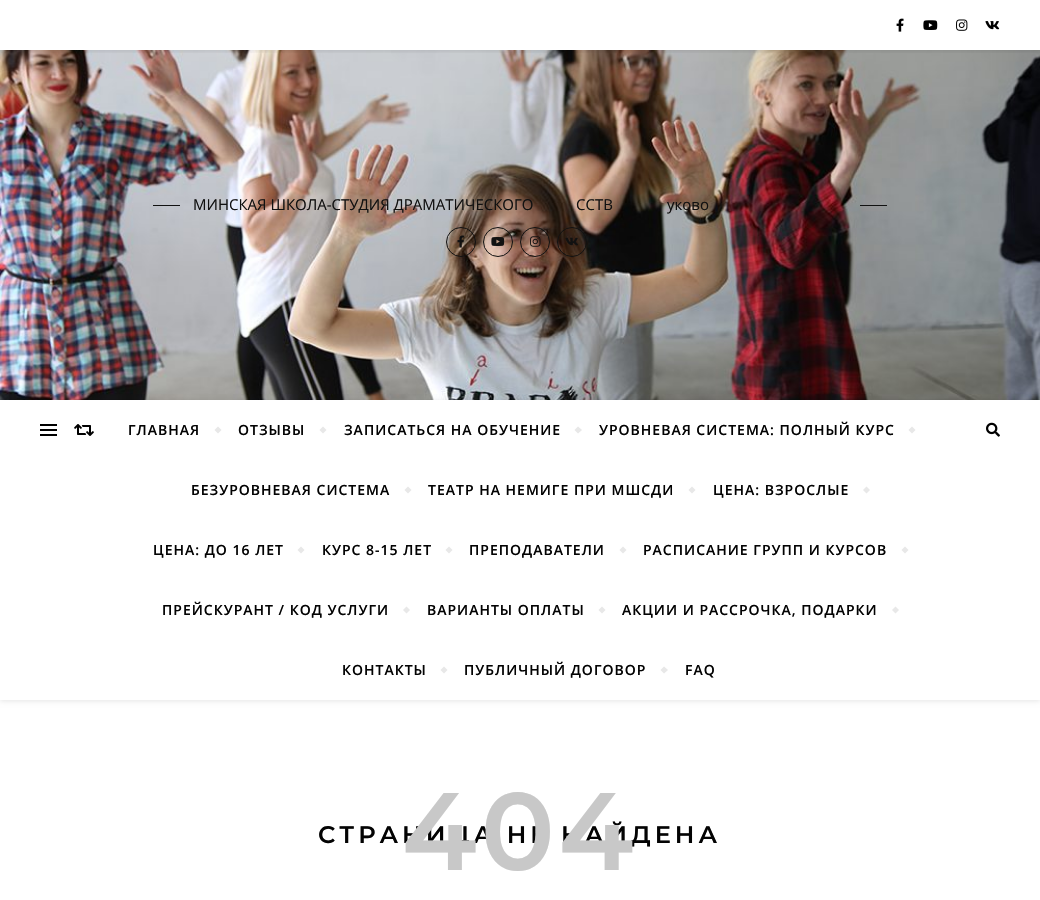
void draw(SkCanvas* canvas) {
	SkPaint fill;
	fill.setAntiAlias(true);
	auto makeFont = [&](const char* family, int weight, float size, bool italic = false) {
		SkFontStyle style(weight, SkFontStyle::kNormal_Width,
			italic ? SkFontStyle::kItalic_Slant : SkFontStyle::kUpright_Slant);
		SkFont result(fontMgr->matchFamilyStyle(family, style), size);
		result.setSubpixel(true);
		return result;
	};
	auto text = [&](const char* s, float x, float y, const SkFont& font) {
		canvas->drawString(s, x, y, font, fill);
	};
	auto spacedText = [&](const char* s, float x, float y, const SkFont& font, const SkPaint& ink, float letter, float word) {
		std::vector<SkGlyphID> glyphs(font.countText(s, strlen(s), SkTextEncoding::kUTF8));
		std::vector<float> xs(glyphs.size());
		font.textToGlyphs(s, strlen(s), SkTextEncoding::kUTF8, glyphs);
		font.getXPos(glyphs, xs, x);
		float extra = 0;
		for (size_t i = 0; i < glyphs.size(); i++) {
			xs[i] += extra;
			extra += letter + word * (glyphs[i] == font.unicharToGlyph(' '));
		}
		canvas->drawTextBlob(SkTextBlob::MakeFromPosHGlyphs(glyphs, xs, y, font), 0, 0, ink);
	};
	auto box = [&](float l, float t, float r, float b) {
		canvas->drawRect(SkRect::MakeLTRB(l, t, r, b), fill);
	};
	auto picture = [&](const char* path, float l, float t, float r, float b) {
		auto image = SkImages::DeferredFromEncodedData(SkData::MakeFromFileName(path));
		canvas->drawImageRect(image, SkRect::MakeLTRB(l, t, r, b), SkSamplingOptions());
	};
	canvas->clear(0xFFFFFFFF);
	picture("image0.png", 0, 50, 1040, 400);
	canvas->save();
	canvas->clipRect(SkRect::MakeLTRB(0, 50, 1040, 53));
	fill.setColor(0x1A000000);
	fill.setMaskFilter(SkMaskFilter::MakeBlur(kNormal_SkBlurStyle, 2.5f));
	canvas->drawRect(SkRect::MakeLTRB(0, 1, 1040, 51), fill);
	fill.setMaskFilter(nullptr);
	canvas->restore();
	picture("image1.png", 896, 18, 904, 32);
	picture("image2.png", 923, 20, 938, 30);
	picture("image3.png", 956, 19, 968, 31);
	picture("image4.png", 985, 21, 1000, 30);
	fill.setColor(0xFF111111);
	box(153, 205, 180, 206);
	box(860, 205, 887, 206);
	fill.setStyle(SkPaint::kStroke_Style);
	fill.setStrokeWidth(1);
	canvas->drawCircle(461, 242, 14.5f, fill);
	picture("image5.png", 457, 235, 464, 248);
	canvas->drawCircle(498, 242, 14.5f, fill);
	picture("image6.png", 491, 237, 505, 246);
	canvas->drawCircle(535, 242, 14.5f, fill);
	picture("image7.png", 530, 236, 541, 247);
	canvas->drawCircle(572, 242, 14.5f, fill);
	picture("image8.png", 565, 237, 578, 246);
	canvas->save();
	canvas->clipPath(SkPathBuilder(SkPathFillType::kEvenOdd).moveTo(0, 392).lineTo(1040, 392).lineTo(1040, 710).lineTo(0, 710).close().moveTo(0, 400).lineTo(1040, 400).lineTo(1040, 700).lineTo(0, 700).close().detach(), true);
	fill.setStyle(SkPaint::kFill_Style);
	fill.setColor(0x1A000000);
	fill.setMaskFilter(SkMaskFilter::MakeBlur(kNormal_SkBlurStyle, 2.5f));
	canvas->drawRect(SkRect::MakeLTRB(0, 401, 1040, 701), fill);
	fill.setMaskFilter(nullptr);
	canvas->restore();
	fill.setColor(0xFF000000);
	box(40, 424, 57, 426);
	box(40, 429, 57, 431);
	box(40, 434, 57, 436);
	picture("image9.png", 74, 424, 94, 436);
	fill.setColor(0xFFE8E8E8);
	canvas->drawPath(SkPathBuilder().moveTo(214.5f, 430).lineTo(218, 426.5f).lineTo(221.5f, 430).lineTo(218, 433.5f).close().detach(), fill);
	canvas->drawPath(SkPathBuilder().moveTo(319.5f, 430).lineTo(323, 426.5f).lineTo(326.5f, 430).lineTo(323, 433.5f).close().detach(), fill);
	canvas->drawPath(SkPathBuilder().moveTo(574.5f, 430).lineTo(578, 426.5f).lineTo(582, 430).lineTo(578, 433.5f).close().detach(), fill);
	canvas->drawPath(SkPathBuilder().moveTo(908.5f, 430).lineTo(912, 426.5f).lineTo(915.5f, 430).lineTo(912, 433.5f).close().detach(), fill);
	canvas->drawPath(SkPathBuilder().moveTo(404.5f, 490).lineTo(408, 486.5f).lineTo(411.5f, 490).lineTo(408, 493.5f).close().detach(), fill);
	canvas->drawPath(SkPathBuilder().moveTo(688.5f, 490).lineTo(692, 486.5f).lineTo(695.5f, 490).lineTo(692, 493.5f).close().detach(), fill);
	canvas->drawPath(SkPathBuilder().moveTo(863, 490).lineTo(866.5f, 486.5f).lineTo(870, 490).lineTo(866.5f, 493.5f).close().detach(), fill);
	canvas->drawPath(SkPathBuilder().moveTo(297.5f, 550).lineTo(301, 546.5f).lineTo(304.5f, 550).lineTo(301, 553.5f).close().detach(), fill);
	canvas->drawPath(SkPathBuilder().moveTo(445.5f, 550).lineTo(449, 546.5f).lineTo(452.5f, 550).lineTo(449, 553.5f).close().detach(), fill);
	canvas->drawPath(SkPathBuilder().moveTo(619.5f, 550).lineTo(623, 546.5f).lineTo(626.5f, 550).lineTo(623, 553.5f).close().detach(), fill);
	canvas->drawPath(SkPathBuilder().moveTo(901.5f, 550).lineTo(905, 546.5f).lineTo(908.5f, 550).lineTo(905, 553.5f).close().detach(), fill);
	canvas->drawPath(SkPathBuilder().moveTo(403, 610).lineTo(406.5f, 606.5f).lineTo(410, 610).lineTo(406.5f, 613.5f).close().detach(), fill);
	canvas->drawPath(SkPathBuilder().moveTo(598.5f, 610).lineTo(602, 606.5f).lineTo(605.5f, 610).lineTo(602, 613.5f).close().detach(), fill);
	canvas->drawPath(SkPathBuilder().moveTo(892, 610).lineTo(895.5f, 606.5f).lineTo(899, 610).lineTo(895.5f, 613.5f).close().detach(), fill);
	canvas->drawPath(SkPathBuilder().moveTo(440.5f, 670).lineTo(444, 666.5f).lineTo(447.5f, 670).lineTo(444, 673.5f).close().detach(), fill);
	canvas->drawPath(SkPathBuilder().moveTo(660.5f, 670).lineTo(664, 666.5f).lineTo(668, 670).lineTo(664, 673.5f).close().detach(), fill);
	picture("image10.png", 986, 422, 1000, 437);
	auto font1 = makeFont("Open Sans", 400, 15);
	fill.setColor(0xFF111111);
	text("МИНСКАЯ ШКОЛА-СТУДИЯ ДРАМАТИЧЕСКОГО", 193, 210, font1);
	text("ССТВ", 576, 210, font1);
	text("уково", 667, 210, font1);
	auto font2 = makeFont("Open Sans", 600, 14);
	fill.setColor(0xFF030303);
	spacedText("ГЛАВНАЯ", 128, 435, font2, fill, 1, 0);
	spacedText("ОТЗЫВЫ", 238, 435, font2, fill, 1, 0);
	spacedText("ЗАПИСАТЬСЯ НА ОБУЧЕНИЕ", 344, 435, font2, fill, 1, 0);
	spacedText("УРОВНЕВАЯ СИСТЕМА: ПОЛНЫЙ КУРС", 599, 435, font2, fill, 1, 0);
	spacedText("БЕЗУРОВНЕВАЯ СИСТЕМА", 191, 495, font2, fill, 1, 0);
	spacedText("ТЕАТР НА НЕМИГЕ ПРИ МШСДИ", 428, 495, font2, fill, 1, 0);
	spacedText("ЦЕНА: ВЗРОСЛЫЕ", 713, 495, font2, fill, 1, 0);
	spacedText("ЦЕНА: ДО 16 ЛЕТ", 153, 555, font2, fill, 1, 0);
	spacedText("КУРС 8-15 ЛЕТ", 322, 555, font2, fill, 1, 0);
	spacedText("ПРЕПОДАВАТЕЛИ", 469, 555, font2, fill, 1, 0);
	spacedText("РАСПИСАНИЕ ГРУПП И КУРСОВ", 643, 555, font2, fill, 1, 0);
	spacedText("ПРЕЙСКУРАНТ / КОД УСЛУГИ", 162, 615, font2, fill, 1, 0);
	spacedText("ВАРИАНТЫ ОПЛАТЫ", 427, 615, font2, fill, 1, 0);
	spacedText("АКЦИИ И РАССРОЧКА, ПОДАРКИ", 622, 615, font2, fill, 1, 0);
	spacedText("КОНТАКТЫ", 342, 675, font2, fill, 1, 0);
	spacedText("ПУБЛИЧНЫЙ ДОГОВОР", 464, 675, font2, fill, 1, 0);
	spacedText("FAQ", 685, 675, font2, fill, 1, 0);
	auto font3 = makeFont("Montserrat", 600, 24);
	spacedText("СТРАНИЦА НЕ НАЙДЕНА", 318, 843, font3, fill, 4, 0);
	auto font4 = makeFont("Montserrat", 600, 110);
	fill.setColor(0xFFC8C8C8);
	spacedText("404", 402, 870, font4, fill, 4, 0);
}
